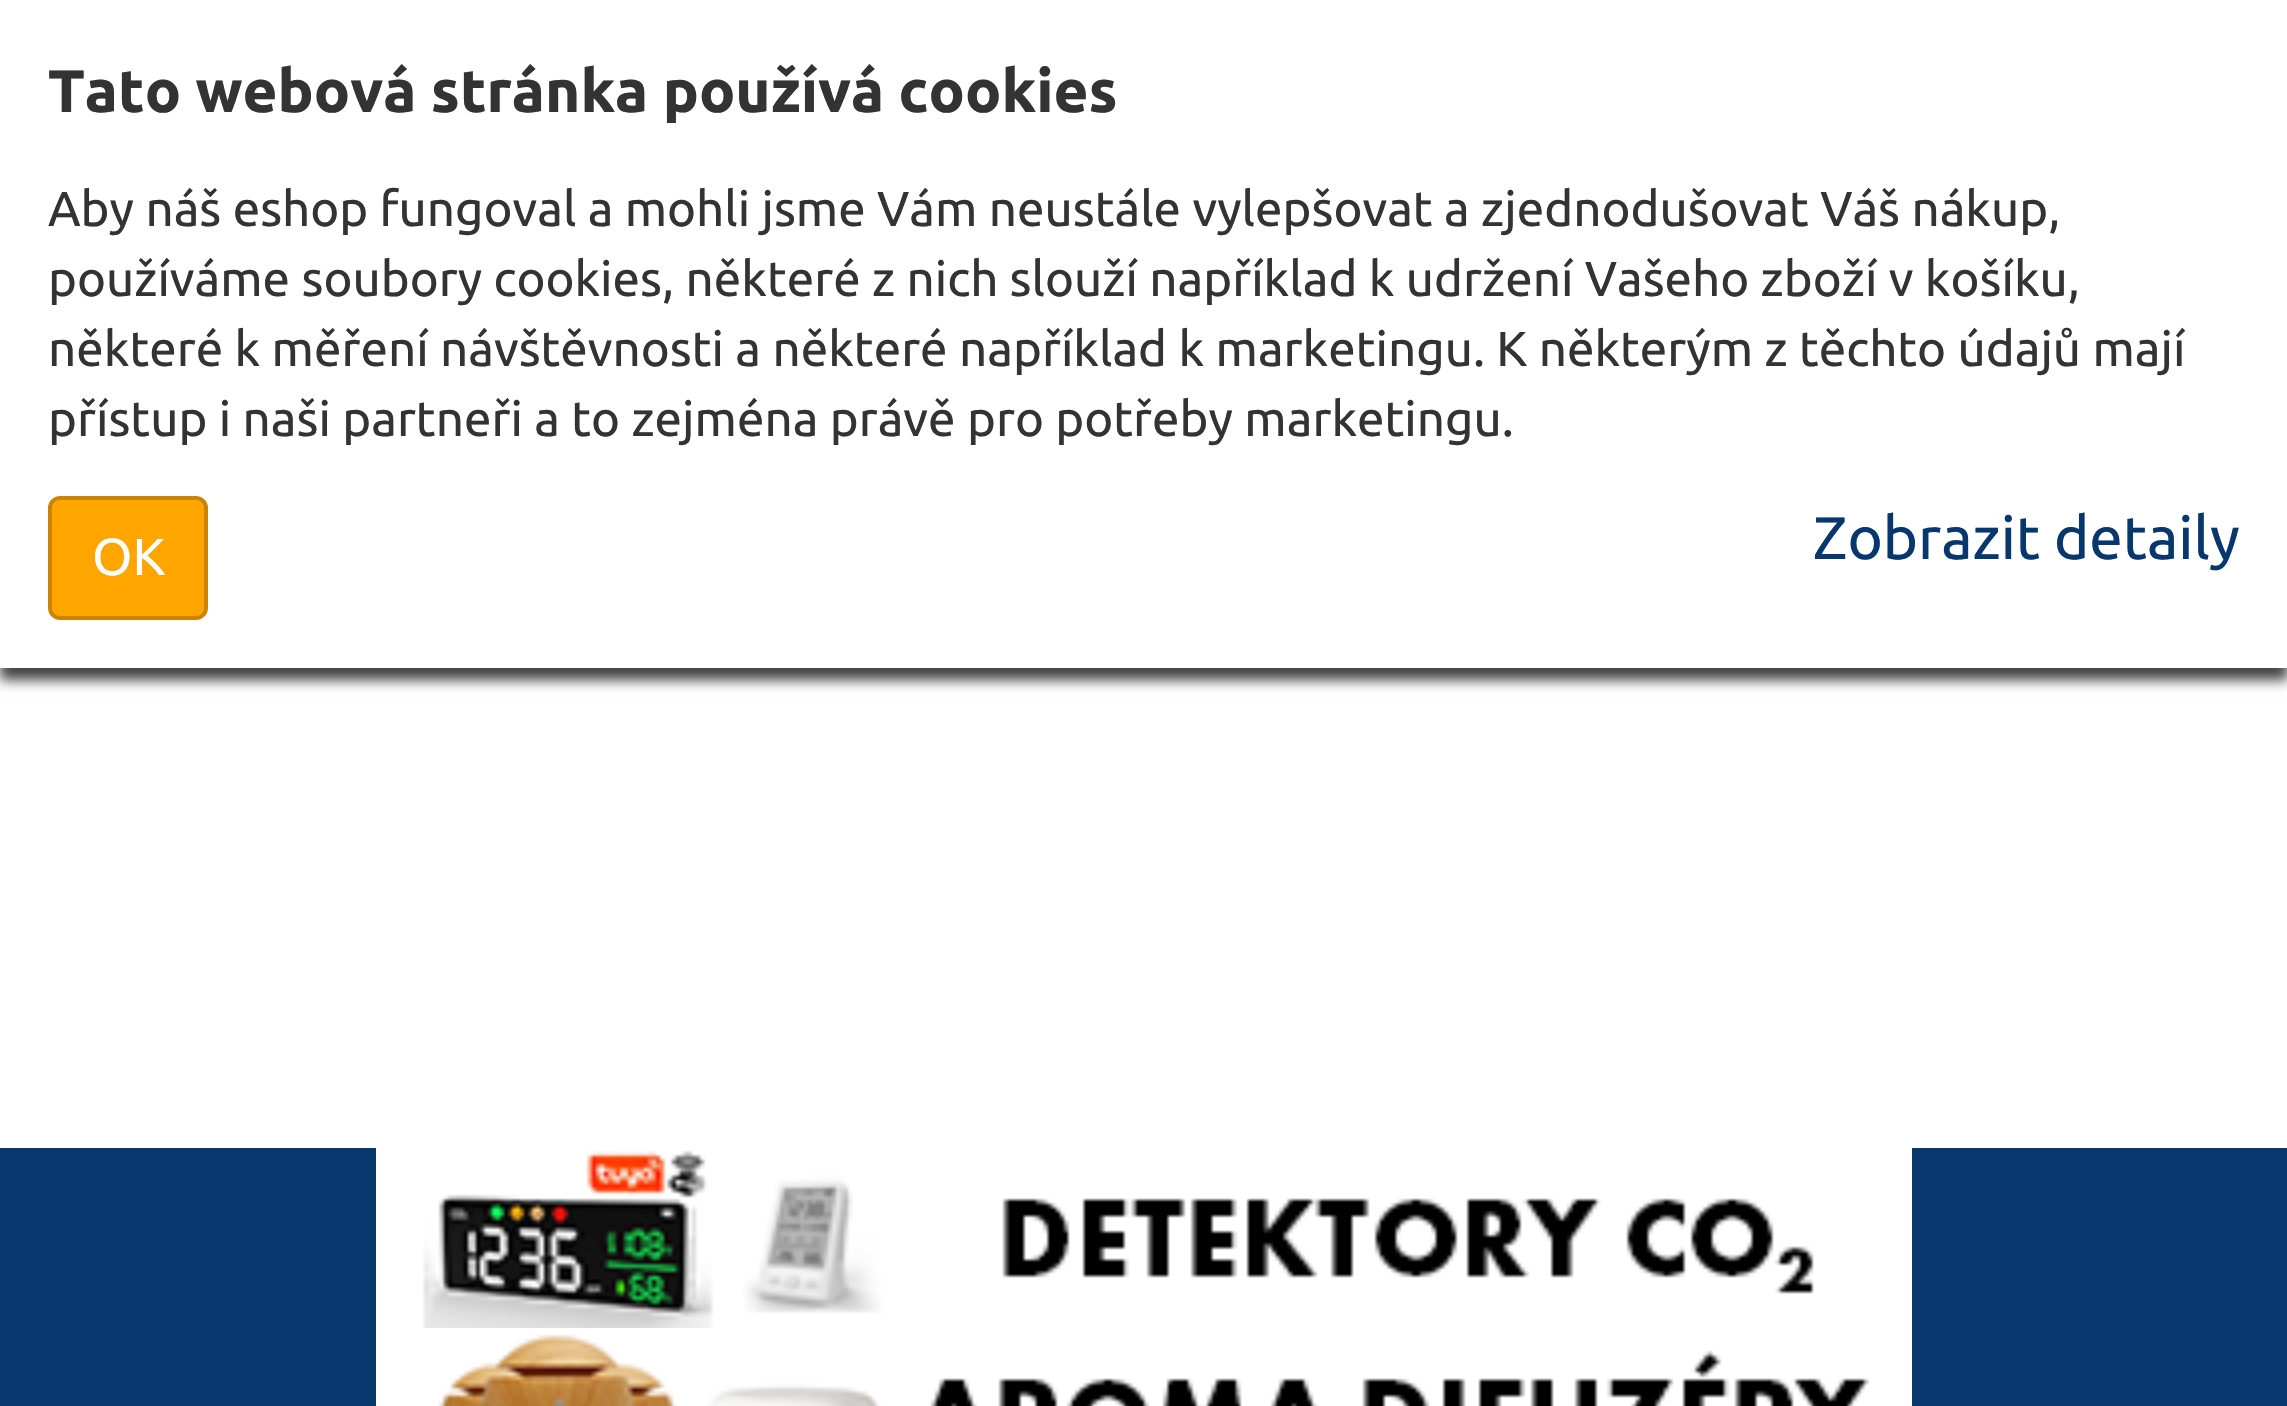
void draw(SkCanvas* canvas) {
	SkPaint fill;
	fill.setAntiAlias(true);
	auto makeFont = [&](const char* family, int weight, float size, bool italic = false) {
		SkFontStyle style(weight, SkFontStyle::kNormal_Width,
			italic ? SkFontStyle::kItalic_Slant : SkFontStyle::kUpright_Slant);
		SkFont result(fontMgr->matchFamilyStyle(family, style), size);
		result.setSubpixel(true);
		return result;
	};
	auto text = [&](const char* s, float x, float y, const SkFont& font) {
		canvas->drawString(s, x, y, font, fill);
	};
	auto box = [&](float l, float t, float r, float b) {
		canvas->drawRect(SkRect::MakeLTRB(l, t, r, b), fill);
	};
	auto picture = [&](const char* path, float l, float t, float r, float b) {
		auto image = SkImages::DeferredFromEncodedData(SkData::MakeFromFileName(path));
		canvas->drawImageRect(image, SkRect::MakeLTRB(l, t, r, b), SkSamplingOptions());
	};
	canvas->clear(0xFFFFFFFF);
	fill.setColor(0xBD000000);
	fill.setMaskFilter(SkMaskFilter::MakeBlur(kNormal_SkBlurStyle, 6));
	canvas->drawRect(SkRect::MakeLTRB(0, 12, 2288, 680), fill);
	fill.setMaskFilter(nullptr);
	fill.setColor(0xFFFFFFFF);
	box(0, 0, 2287, 668);
	fill.setColor(0xFFFFA500);
	canvas->drawRoundRect(SkRect::MakeLTRB(50, 498, 206, 618), 10, 10, fill);
	fill.setStyle(SkPaint::kStroke_Style);
	fill.setStrokeWidth(4);
	fill.setColor(0xFFCC8400);
	canvas->drawRoundRect(SkRect::MakeLTRB(50, 498, 206, 618), 10, 10, fill);
	fill.setStyle(SkPaint::kFill_Style);
	fill.setColor(0xFF08376D);
	box(0, 1148, 2287, 1406);
	picture("image0.png", 376, 1148, 1912, 1328);
	picture("image1.png", 376, 1328, 1912, 1406);
	auto font1 = makeFont("Ubuntu", 700, 60);
	fill.setColor(0xFF333333);
	text("Tato webová stránka používá cookies", 48, 112, font1);
	auto font2 = makeFont("Ubuntu", 400, 49.2f);
	text("Aby náš eshop fungoval a mohli jsme Vám neustále vylepšovat a zjednodušovat Váš nákup,", 48, 226, font2);
	text("používáme soubory cookies, některé z nich slouží například k udržení Vašeho zboží v košíku,", 48, 296, font2);
	text("některé k měření návštěvnosti a některé například k marketingu. K některým z těchto údajů mají", 48, 366, font2);
	text("přístup i naši partneři a to zejména právě pro potřeby marketingu.", 48, 436, font2);
	auto font3 = makeFont("Ubuntu", 400, 52);
	fill.setColor(0xFFFFFFFF);
	text("OK", 92, 575, font3);
	auto font4 = makeFont("Ubuntu", 400, 60);
	fill.setColor(0xFF08376D);
	text("Zobrazit detaily", 1813, 559, font4);
}
